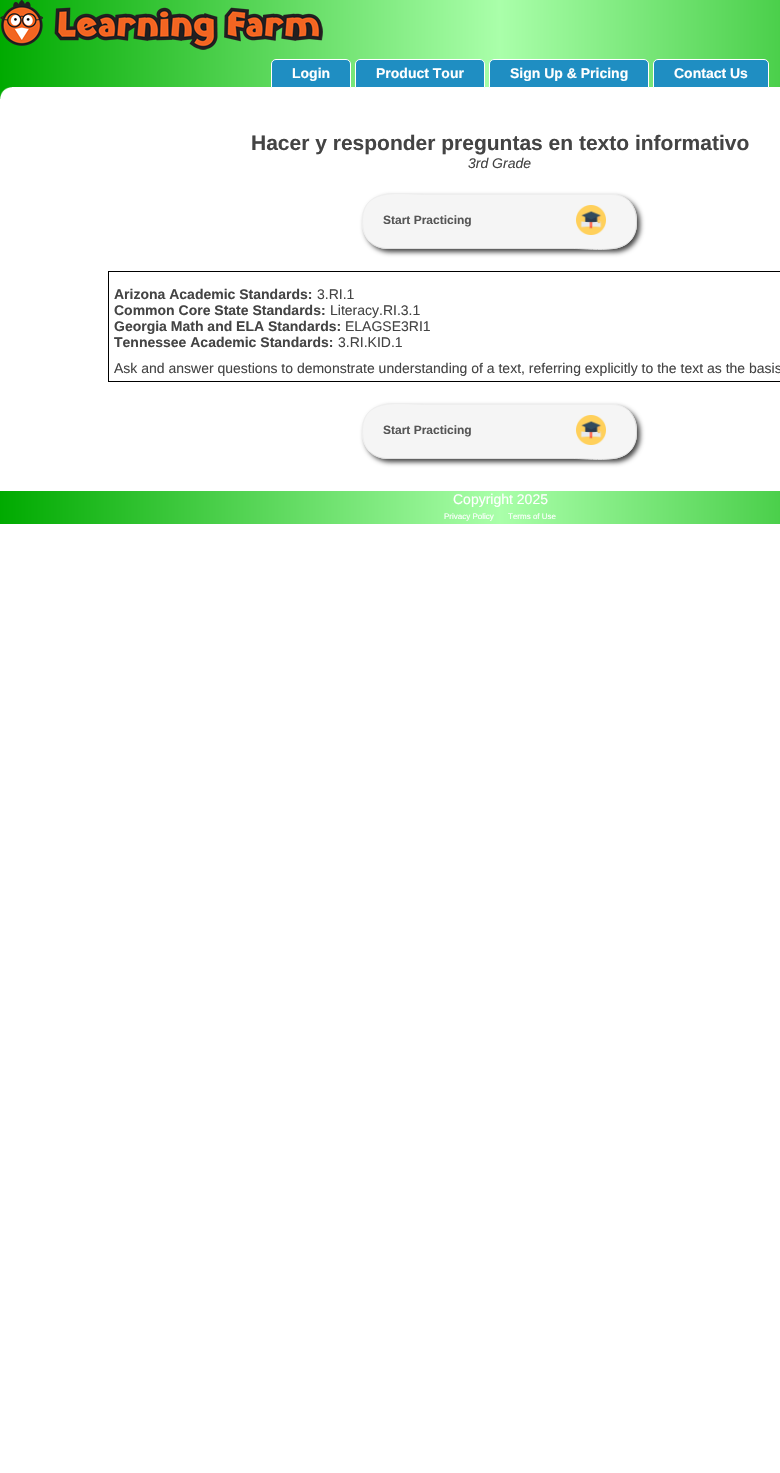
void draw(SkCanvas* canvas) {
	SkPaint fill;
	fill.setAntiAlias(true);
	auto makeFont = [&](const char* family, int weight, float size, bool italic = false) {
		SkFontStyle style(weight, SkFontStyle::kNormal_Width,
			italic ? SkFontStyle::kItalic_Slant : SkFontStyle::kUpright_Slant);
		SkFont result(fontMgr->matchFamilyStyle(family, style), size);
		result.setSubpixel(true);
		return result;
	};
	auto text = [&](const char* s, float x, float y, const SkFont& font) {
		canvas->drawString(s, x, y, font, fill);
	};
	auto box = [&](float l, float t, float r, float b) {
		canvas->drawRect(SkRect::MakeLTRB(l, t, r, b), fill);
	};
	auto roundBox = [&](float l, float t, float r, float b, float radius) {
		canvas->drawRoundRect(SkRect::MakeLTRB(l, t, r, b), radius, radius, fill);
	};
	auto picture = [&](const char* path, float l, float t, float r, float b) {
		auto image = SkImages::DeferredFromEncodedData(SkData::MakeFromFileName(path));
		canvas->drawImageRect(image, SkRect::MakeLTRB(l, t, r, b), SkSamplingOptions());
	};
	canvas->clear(0xFFFFFFFF);
	{
		const SkColor colors[] = {0xFF00AA00, 0xFFAAFFAA, 0xFF00AA00};
		const float stops[] = {0, 0.5f, 1};
		const SkPoint ends[] = {{0, 44}, {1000, 43}};
		fill.setShader(SkGradientShader::MakeLinear(ends, colors, stops, 3, SkTileMode::kClamp));
		fill.setAlpha(255);
	}
	box(0, 0, 780, 87);
	picture("image0.png", 0, 0, 323, 50);
	fill.setShader(nullptr);
	fill.setColor(0xFF1F8EC2);
	canvas->drawPath(SkPathBuilder().moveTo(276, 59.5f).lineTo(346, 59.5f).cubicTo(348.5f, 59.5f, 350.5f, 61.5f, 350.5f, 64).lineTo(350.5f, 87.5f).lineTo(271.5f, 87.5f).lineTo(271.5f, 64).cubicTo(271.5f, 61.5f, 273.5f, 59.5f, 276, 59.5f).close().detach(), fill);
	fill.setStyle(SkPaint::kStroke_Style);
	fill.setStrokeWidth(1);
	fill.setColor(0xFFFFFFFF);
	canvas->drawPath(SkPathBuilder().moveTo(276, 59.5f).lineTo(346, 59.5f).cubicTo(348.5f, 59.5f, 350.5f, 61.5f, 350.5f, 64).lineTo(350.5f, 87.5f).lineTo(271.5f, 87.5f).lineTo(271.5f, 64).cubicTo(271.5f, 61.5f, 273.5f, 59.5f, 276, 59.5f).close().detach(), fill);
	fill.setStyle(SkPaint::kFill_Style);
	fill.setColor(0xFF1F8EC2);
	canvas->drawPath(SkPathBuilder().moveTo(360, 59.5f).lineTo(480, 59.5f).cubicTo(482.5f, 59.5f, 484.5f, 61.5f, 484.5f, 64).lineTo(484.5f, 87.5f).lineTo(355.5f, 87.5f).lineTo(355.5f, 64).cubicTo(355.5f, 61.5f, 357.5f, 59.5f, 360, 59.5f).close().detach(), fill);
	fill.setStyle(SkPaint::kStroke_Style);
	fill.setColor(0xFFFFFFFF);
	canvas->drawPath(SkPathBuilder().moveTo(360, 59.5f).lineTo(480, 59.5f).cubicTo(482.5f, 59.5f, 484.5f, 61.5f, 484.5f, 64).lineTo(484.5f, 87.5f).lineTo(355.5f, 87.5f).lineTo(355.5f, 64).cubicTo(355.5f, 61.5f, 357.5f, 59.5f, 360, 59.5f).close().detach(), fill);
	fill.setStyle(SkPaint::kFill_Style);
	fill.setColor(0xFF1F8EC2);
	canvas->drawPath(SkPathBuilder().moveTo(494, 59.5f).lineTo(644, 59.5f).cubicTo(646.5f, 59.5f, 648.5f, 61.5f, 648.5f, 64).lineTo(648.5f, 87.5f).lineTo(489.5f, 87.5f).lineTo(489.5f, 64).cubicTo(489.5f, 61.5f, 491.5f, 59.5f, 494, 59.5f).close().detach(), fill);
	fill.setStyle(SkPaint::kStroke_Style);
	fill.setColor(0xFFFFFFFF);
	canvas->drawPath(SkPathBuilder().moveTo(494, 59.5f).lineTo(644, 59.5f).cubicTo(646.5f, 59.5f, 648.5f, 61.5f, 648.5f, 64).lineTo(648.5f, 87.5f).lineTo(489.5f, 87.5f).lineTo(489.5f, 64).cubicTo(489.5f, 61.5f, 491.5f, 59.5f, 494, 59.5f).close().detach(), fill);
	fill.setStyle(SkPaint::kFill_Style);
	fill.setColor(0xFF1F8EC2);
	canvas->drawPath(SkPathBuilder().moveTo(658, 59.5f).lineTo(764, 59.5f).cubicTo(766.5f, 59.5f, 768.5f, 61.5f, 768.5f, 64).lineTo(768.5f, 87.5f).lineTo(653.5f, 87.5f).lineTo(653.5f, 64).cubicTo(653.5f, 61.5f, 655.5f, 59.5f, 658, 59.5f).close().detach(), fill);
	fill.setStyle(SkPaint::kStroke_Style);
	fill.setColor(0xFFFFFFFF);
	canvas->drawPath(SkPathBuilder().moveTo(658, 59.5f).lineTo(764, 59.5f).cubicTo(766.5f, 59.5f, 768.5f, 61.5f, 768.5f, 64).lineTo(768.5f, 87.5f).lineTo(653.5f, 87.5f).lineTo(653.5f, 64).cubicTo(653.5f, 61.5f, 655.5f, 59.5f, 658, 59.5f).close().detach(), fill);
	picture("image1.png", 0, 87, 12, 99);
	fill.setStyle(SkPaint::kFill_Style);
	fill.setColor(0xFF444444);
	fill.setMaskFilter(SkMaskFilter::MakeBlur(kNormal_SkBlurStyle, 2.5f));
	canvas->drawRoundRect(SkRect::MakeLTRB(365, 197, 640, 252), 25, 25, fill);
	fill.setMaskFilter(nullptr);
	fill.setColor(0xFFF5F5F5);
	roundBox(362, 194, 637, 249, 25);
	fill.setStyle(SkPaint::kStroke_Style);
	fill.setColor(0xFFDEDEDE);
	canvas->drawPath(SkPathBuilder().moveTo(629.5f, 201.5f).cubicTo(635.5f, 208, 636.5f, 215.5f, 636.5f, 224).cubicTo(635.5f, 257, 595, 248.5f, 574.5f, 248.5f).lineTo(387, 248.5f).cubicTo(380.5f, 248.5f, 374, 246, 369.5f, 241.5f).detach(), fill);
	fill.setColor(0xFFEEEEEE);
	canvas->drawPath(SkPathBuilder().moveTo(369.5f, 241.5f).cubicTo(363.5f, 235, 362.5f, 227.5f, 362.5f, 219).cubicTo(363.5f, 186, 404, 194.5f, 424.5f, 194.5f).lineTo(612, 194.5f).cubicTo(618.5f, 194.5f, 625, 197, 629.5f, 201.5f).detach(), fill);
	picture("image2.png", 576, 205, 606, 235);
	fill.setStyle(SkPaint::kFill_Style);
	fill.setColor(0xFF000000);
	box(108, 271, 780, 272);
	box(108, 381, 780, 382);
	box(108, 355, 109, 382);
	box(108, 271, 109, 356);
	fill.setColor(0xFF444444);
	fill.setMaskFilter(SkMaskFilter::MakeBlur(kNormal_SkBlurStyle, 2.5f));
	canvas->drawRoundRect(SkRect::MakeLTRB(365, 407, 640, 462), 25, 25, fill);
	fill.setMaskFilter(nullptr);
	fill.setColor(0xFFF5F5F5);
	roundBox(362, 404, 637, 459, 25);
	fill.setStyle(SkPaint::kStroke_Style);
	fill.setColor(0xFFDEDEDE);
	canvas->drawPath(SkPathBuilder().moveTo(629.5f, 411.5f).cubicTo(635.5f, 418, 636.5f, 425.5f, 636.5f, 434).cubicTo(635.5f, 467, 595, 458.5f, 574.5f, 458.5f).lineTo(387, 458.5f).cubicTo(380.5f, 458.5f, 374, 456, 369.5f, 451.5f).detach(), fill);
	fill.setColor(0xFFEEEEEE);
	canvas->drawPath(SkPathBuilder().moveTo(369.5f, 451.5f).cubicTo(363.5f, 445, 362.5f, 437.5f, 362.5f, 429).cubicTo(363.5f, 396, 404, 404.5f, 424.5f, 404.5f).lineTo(612, 404.5f).cubicTo(618.5f, 404.5f, 625, 407, 629.5f, 411.5f).detach(), fill);
	picture("image2.png", 576, 415, 606, 445);
	fill.setStyle(SkPaint::kFill_Style);
	{
		const SkColor colors[] = {0xFF00AA00, 0xFFAAFFAA, 0xFF00AA00};
		const float stops[] = {0, 0.5f, 1};
		const SkPoint ends[] = {{0, 508}, {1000, 507}};
		fill.setShader(SkGradientShader::MakeLinear(ends, colors, stops, 3, SkTileMode::kClamp));
		fill.setAlpha(255);
	}
	box(0, 491, 780, 524);
	auto font1 = makeFont("Liberation Sans", 700, 14);
	fill.setShader(nullptr);
	fill.setColor(0xFFFFFFFF);
	text("Login", 292, 78, font1);
	text("Product Tour", 376, 78, font1);
	text("Sign Up & Pricing", 510, 78, font1);
	text("Contact Us", 674, 78, font1);
	auto font2 = makeFont("Liberation Sans", 700, 21);
	fill.setColor(0xFF444444);
	text("Hacer y responder preguntas en texto informativo", 251, 150, font2);
	auto font3 = makeFont("Liberation Sans", 400, 14, true);
	text("3rd Grade", 468, 168, font3);
	auto font4 = makeFont("Liberation Sans", 700, 12);
	fill.setColor(0xFF565656);
	text("Start Practicing", 383, 224, font4);
	fill.setColor(0xFF444444);
	text("Arizona Academic Standards:", 114, 299, font1);
	auto font5 = makeFont("Liberation Sans", 400, 14);
	text("3.RI.1", 317, 299, font5);
	text("Common Core State Standards:", 114, 315, font1);
	text("Literacy.RI.3.1", 330, 315, font5);
	text("Georgia Math and ELA Standards:", 114, 331, font1);
	text("ELAGSE3RI1", 345, 331, font5);
	text("Tennessee Academic Standards:", 114, 347, font1);
	text("3.RI.KID.1", 338, 347, font5);
	text("Ask and answer questions to demonstrate understanding of a text, referring explicitly to the text as the basis", 114, 373, font5);
	fill.setColor(0xFF565656);
	text("Start Practicing", 383, 434, font4);
	fill.setColor(0xFFFFFFFF);
	text("Copyright 2025", 453, 504, font5);
	auto font6 = makeFont("Liberation Sans", 400, 8);
	text("Privacy Policy", 444, 519, font6);
	text("Terms of Use", 508, 519, font6);
}
